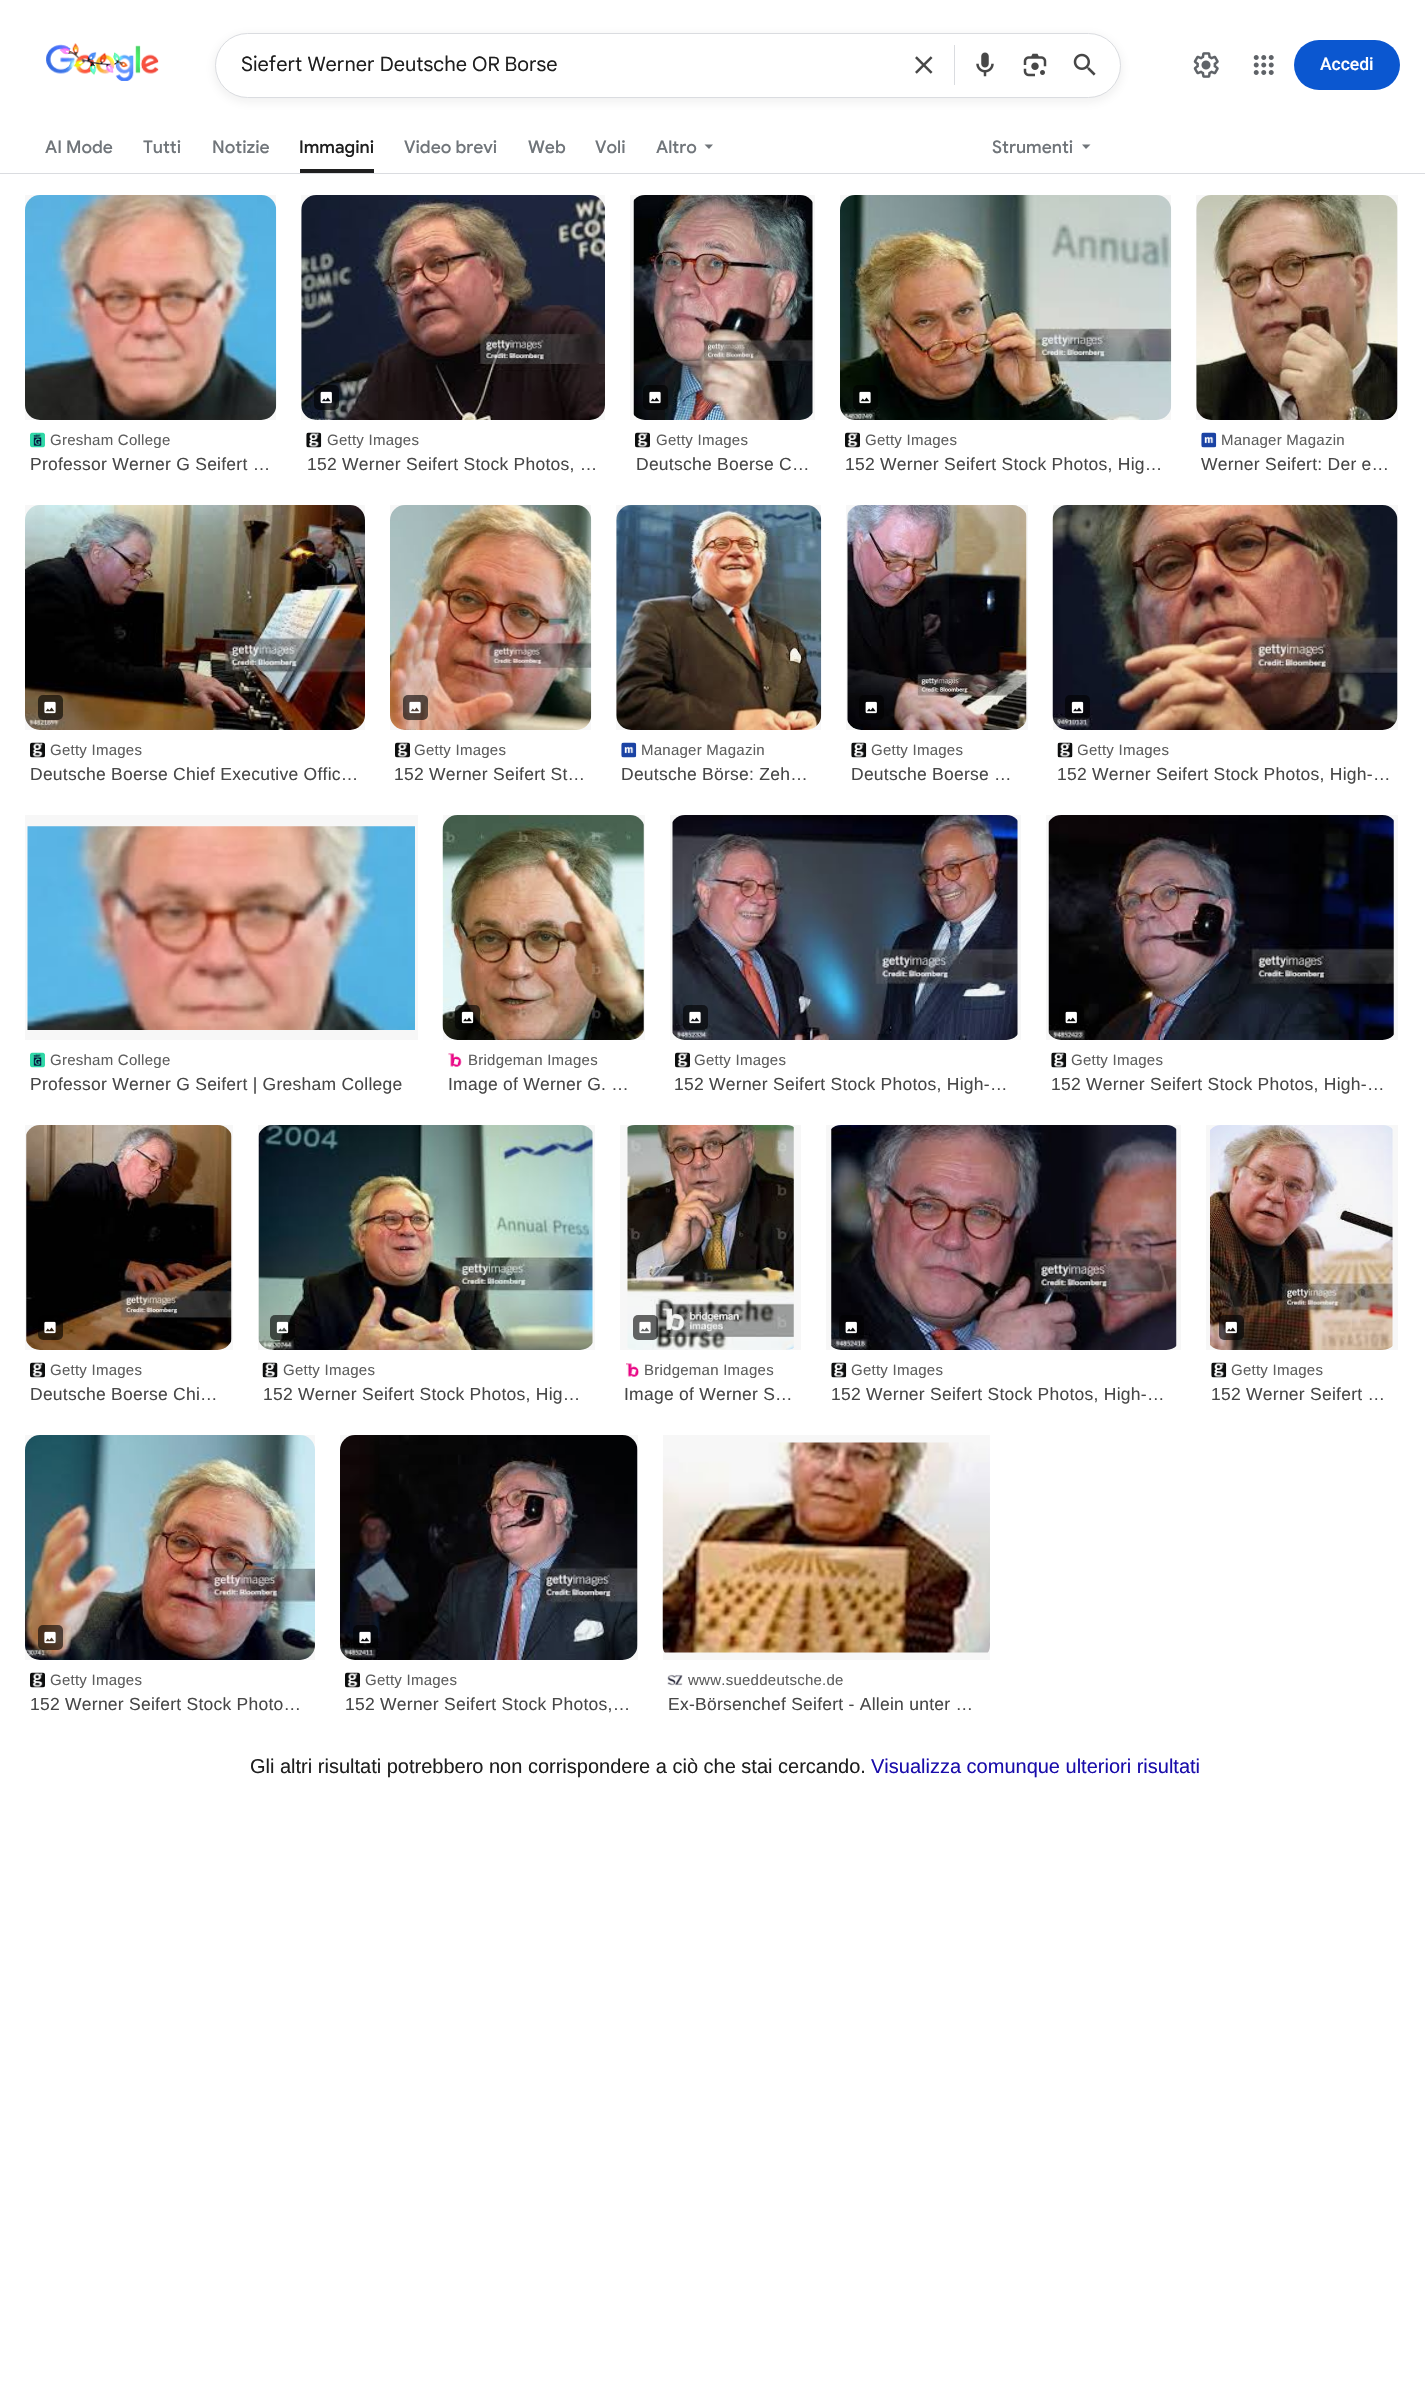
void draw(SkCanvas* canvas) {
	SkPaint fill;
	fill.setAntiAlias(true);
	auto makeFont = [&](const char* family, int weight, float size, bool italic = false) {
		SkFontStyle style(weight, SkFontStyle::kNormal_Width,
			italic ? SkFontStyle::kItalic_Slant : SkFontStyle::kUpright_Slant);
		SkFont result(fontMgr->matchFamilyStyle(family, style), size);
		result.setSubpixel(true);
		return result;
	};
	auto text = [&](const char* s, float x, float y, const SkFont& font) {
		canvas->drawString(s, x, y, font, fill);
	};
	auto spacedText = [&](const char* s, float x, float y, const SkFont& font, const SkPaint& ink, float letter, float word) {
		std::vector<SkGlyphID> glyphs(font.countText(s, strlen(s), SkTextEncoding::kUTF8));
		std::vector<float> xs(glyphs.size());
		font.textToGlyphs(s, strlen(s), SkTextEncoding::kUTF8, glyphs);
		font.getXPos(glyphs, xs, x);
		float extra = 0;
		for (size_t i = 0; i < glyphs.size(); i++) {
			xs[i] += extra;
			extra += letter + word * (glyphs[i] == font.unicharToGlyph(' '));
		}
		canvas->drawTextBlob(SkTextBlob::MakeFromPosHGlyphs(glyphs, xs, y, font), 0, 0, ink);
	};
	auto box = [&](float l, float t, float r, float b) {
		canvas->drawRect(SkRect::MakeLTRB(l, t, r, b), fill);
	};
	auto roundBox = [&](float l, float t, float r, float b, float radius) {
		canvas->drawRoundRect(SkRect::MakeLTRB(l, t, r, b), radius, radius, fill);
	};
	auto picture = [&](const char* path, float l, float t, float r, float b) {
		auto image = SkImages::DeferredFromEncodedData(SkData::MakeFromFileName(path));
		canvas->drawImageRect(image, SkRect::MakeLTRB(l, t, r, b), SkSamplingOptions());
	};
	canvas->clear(0xFFFFFFFF);
	picture("image0.png", 46, 43, 159, 81);
	fill.setColor(0x141F1F1F);
	fill.setMaskFilter(SkMaskFilter::MakeBlur(kNormal_SkBlurStyle, 6));
	canvas->drawRoundRect(SkRect::MakeLTRB(215, 36, 1121, 101), 32.5f, 32.5f, fill);
	fill.setMaskFilter(nullptr);
	fill.setColor(0xFFFFFFFF);
	canvas->drawRoundRect(SkRect::MakeLTRB(215.5f, 33.5f, 1120.5f, 97.5f), 32, 32, fill);
	fill.setStyle(SkPaint::kStroke_Style);
	fill.setStrokeWidth(1);
	fill.setColor(0xFFDADCE0);
	canvas->drawRoundRect(SkRect::MakeLTRB(215.5f, 33.5f, 1120.5f, 97.5f), 32, 32, fill);
	picture("image1.png", 915, 56, 933, 74);
	fill.setStyle(SkPaint::kFill_Style);
	box(954, 45, 955, 85);
	picture("image2.png", 976, 52, 994, 77);
	picture("image3.png", 1023, 53, 1047, 77);
	picture("image4.png", 1073, 53, 1096, 76);
	picture("image5.png", 1193, 52, 1219, 78);
	picture("image6.png", 1253, 55, 1274, 75);
	fill.setColor(0xFF0B57D0);
	roundBox(1294, 40, 1400, 90, 25);
	fill.setColor(0xFF1F1F1F);
	box(300, 169, 374, 173);
	fill.setColor(0xFF70757A);
	canvas->drawPath(SkPathBuilder().moveTo(704.5f, 144.5f).lineTo(709, 149).lineTo(713, 144.5f).close().detach(), fill);
	canvas->drawPath(SkPathBuilder().moveTo(1082, 144.5f).lineTo(1086, 149).lineTo(1090.5f, 144.5f).close().detach(), fill);
	fill.setColor(0xFFDADCE0);
	box(0, 173, 1425, 174);
	picture("image7.png", 25, 195, 277, 420);
	fill.setColor(0x08000000);
	box(25, 195, 276, 420);
	picture("image8.png", 30, 432, 45, 448);
	picture("image9.png", 301, 195, 605, 420);
	box(301, 195, 605, 420);
	fill.setColor(0x99000000);
	roundBox(314, 385, 339, 410, 5);
	picture("image10.png", 320, 391, 332, 404);
	picture("image11.png", 306, 432, 322, 448);
	picture("image12.png", 633, 195, 813, 420);
	fill.setColor(0x08000000);
	box(630, 195, 815, 420);
	fill.setColor(0x99000000);
	roundBox(643, 385, 668, 410, 5);
	picture("image13.png", 649, 391, 661, 404);
	picture("image14.png", 635, 432, 650, 448);
	picture("image15.png", 840, 195, 1172, 420);
	fill.setColor(0x08000000);
	box(840, 195, 1171, 420);
	fill.setColor(0x99000000);
	roundBox(853, 385, 878, 410, 5);
	picture("image16.png", 859, 391, 871, 404);
	picture("image17.png", 845, 432, 860, 448);
	picture("image18.png", 1196, 195, 1398, 420);
	fill.setColor(0x08000000);
	box(1196, 195, 1398, 420);
	picture("image19.png", 1201, 432, 1217, 448);
	picture("image20.png", 25, 505, 365, 730);
	box(25, 505, 365, 730);
	fill.setColor(0x99000000);
	roundBox(38, 695, 63, 720, 5);
	picture("image21.png", 44, 701, 56, 714);
	picture("image22.png", 30, 742, 45, 758);
	picture("image23.png", 390, 505, 592, 730);
	fill.setColor(0x08000000);
	box(390, 505, 591, 730);
	fill.setColor(0x99000000);
	roundBox(403, 695, 428, 720, 5);
	picture("image24.png", 409, 701, 421, 714);
	picture("image14.png", 395, 742, 410, 758);
	picture("image25.png", 616, 505, 822, 730);
	fill.setColor(0x08000000);
	box(616, 505, 821, 730);
	picture("image19.png", 621, 742, 637, 758);
	picture("image26.png", 847, 505, 1027, 730);
	box(846, 505, 1028, 730);
	fill.setColor(0x99000000);
	roundBox(859, 695, 884, 720, 5);
	picture("image27.png", 865, 701, 877, 714);
	picture("image28.png", 851, 742, 867, 758);
	picture("image29.png", 1052, 505, 1398, 730);
	fill.setColor(0x08000000);
	box(1053, 505, 1398, 730);
	fill.setColor(0x99000000);
	roundBox(1065, 695, 1090, 720, 5);
	picture("image30.png", 1071, 701, 1084, 714);
	picture("image31.png", 1057, 742, 1073, 758);
	picture("image32.png", 27, 826, 415, 1030);
	fill.setColor(0x08000000);
	box(25, 815, 418, 1040);
	picture("image8.png", 30, 1052, 45, 1068);
	picture("image33.png", 442, 815, 644, 1040);
	box(443, 815, 645, 1040);
	fill.setColor(0x99000000);
	roundBox(455, 1005, 480, 1030, 5);
	picture("image34.png", 461, 1011, 474, 1024);
	picture("image35.png", 448, 1053, 462, 1067);
	picture("image36.png", 672, 815, 1018, 1040);
	fill.setColor(0x08000000);
	box(670, 815, 1021, 1040);
	fill.setColor(0x99000000);
	roundBox(683, 1005, 708, 1030, 5);
	picture("image37.png", 689, 1011, 701, 1024);
	picture("image17.png", 675, 1052, 690, 1068);
	picture("image38.png", 1048, 815, 1394, 1040);
	fill.setColor(0x08000000);
	box(1046, 815, 1398, 1040);
	fill.setColor(0x99000000);
	roundBox(1059, 1005, 1084, 1030, 5);
	picture("image39.png", 1065, 1011, 1077, 1024);
	picture("image11.png", 1051, 1052, 1067, 1068);
	picture("image40.png", 26, 1125, 232, 1350);
	fill.setColor(0x08000000);
	box(25, 1125, 233, 1350);
	fill.setColor(0x99000000);
	roundBox(38, 1315, 63, 1340, 5);
	picture("image41.png", 44, 1321, 56, 1334);
	picture("image22.png", 30, 1362, 45, 1378);
	picture("image42.png", 258, 1125, 593, 1350);
	fill.setColor(0x08000000);
	box(258, 1125, 595, 1350);
	fill.setColor(0x99000000);
	roundBox(270, 1315, 295, 1340, 5);
	picture("image43.png", 276, 1321, 289, 1334);
	picture("image31.png", 262, 1362, 278, 1378);
	picture("image44.png", 627, 1125, 794, 1350);
	fill.setColor(0x08000000);
	box(620, 1125, 801, 1350);
	fill.setColor(0x99000000);
	roundBox(633, 1315, 658, 1340, 5);
	picture("image45.png", 639, 1321, 651, 1334);
	picture("image46.png", 626, 1363, 639, 1377);
	picture("image47.png", 831, 1125, 1177, 1350);
	fill.setColor(0x08000000);
	box(826, 1125, 1181, 1350);
	fill.setColor(0x99000000);
	roundBox(839, 1315, 864, 1340, 5);
	picture("image48.png", 845, 1321, 857, 1334);
	picture("image28.png", 831, 1362, 847, 1378);
	picture("image49.png", 1210, 1125, 1393, 1350);
	fill.setColor(0x08000000);
	box(1206, 1125, 1398, 1350);
	fill.setColor(0x99000000);
	roundBox(1219, 1315, 1244, 1340, 5);
	picture("image50.png", 1225, 1321, 1237, 1334);
	picture("image11.png", 1211, 1362, 1227, 1378);
	picture("image51.png", 25, 1435, 315, 1660);
	fill.setColor(0x08000000);
	box(25, 1435, 315, 1660);
	fill.setColor(0x99000000);
	roundBox(38, 1625, 63, 1650, 5);
	picture("image52.png", 44, 1631, 56, 1644);
	picture("image22.png", 30, 1672, 45, 1688);
	picture("image53.png", 340, 1435, 638, 1660);
	fill.setColor(0x08000000);
	box(340, 1435, 638, 1660);
	fill.setColor(0x99000000);
	roundBox(353, 1625, 378, 1650, 5);
	picture("image54.png", 359, 1631, 371, 1644);
	picture("image17.png", 345, 1672, 360, 1688);
	picture("image55.png", 662, 1442, 990, 1653);
	fill.setColor(0x08000000);
	box(663, 1435, 990, 1660);
	picture("image56.png", 667, 1674, 683, 1686);
	auto font1 = makeFont("Google Sans", 400, 20);
	fill.setColor(0xFF1F1F1F);
	text("Siefert Werner Deutsche OR Borse", 241, 71, font1);
	auto font2 = makeFont("Roboto", 500, 17.5f);
	fill.setColor(0xFFFFFFFF);
	text("Accedi", 1320, 70, font2);
	auto font3 = makeFont("Google Sans", 500, 17.5f);
	fill.setColor(0xFF70757A);
	text("AI Mode", 45, 153, font3);
	text("Tutti", 143, 153, font3);
	text("Notizie", 212, 153, font3);
	fill.setColor(0xFF1F1F1F);
	text("Immagini", 299, 153, font3);
	fill.setColor(0xFF70757A);
	text("Video brevi", 404, 153, font3);
	text("Web", 528, 153, font3);
	text("Voli", 595, 153, font3);
	text("Altro", 656, 153, font3);
	text("Strumenti", 992, 153, font3);
	auto font4 = makeFont("Liberation Sans", 400, 15);
	fill.setColor(0xFF5E5E5E);
	spacedText("Gresham College", 50, 445, font4, fill, 0.25f, 0);
	auto font5 = makeFont("Liberation Sans", 400, 17.5f);
	fill.setColor(0xFF474747);
	spacedText("Professor Werner G Seifert …", 30, 470, font5, fill, 0.25f, 0);
	fill.setColor(0xFF5E5E5E);
	spacedText("Getty Images", 327, 445, font4, fill, 0.25f, 0);
	fill.setColor(0xFF474747);
	spacedText("152 Werner Seifert Stock Photos, …", 307, 470, font5, fill, 0.25f, 0);
	fill.setColor(0xFF5E5E5E);
	spacedText("Getty Images", 656, 445, font4, fill, 0.25f, 0);
	fill.setColor(0xFF474747);
	spacedText("Deutsche Boerse C…", 636, 470, font5, fill, 0.25f, 0);
	fill.setColor(0xFF5E5E5E);
	spacedText("Getty Images", 865, 445, font4, fill, 0.25f, 0);
	fill.setColor(0xFF474747);
	spacedText("152 Werner Seifert Stock Photos, Hig…", 845, 470, font5, fill, 0.25f, 0);
	fill.setColor(0xFF5E5E5E);
	spacedText("Manager Magazin", 1221, 445, font4, fill, 0.25f, 0);
	fill.setColor(0xFF474747);
	spacedText("Werner Seifert: Der e…", 1201, 470, font5, fill, 0.25f, 0);
	fill.setColor(0xFF5E5E5E);
	spacedText("Getty Images", 50, 755, font4, fill, 0.25f, 0);
	fill.setColor(0xFF474747);
	spacedText("Deutsche Boerse Chief Executive Offic…", 30, 780, font5, fill, 0.25f, 0);
	fill.setColor(0xFF5E5E5E);
	spacedText("Getty Images", 414, 755, font4, fill, 0.25f, 0);
	fill.setColor(0xFF474747);
	spacedText("152 Werner Seifert St…", 394, 780, font5, fill, 0.25f, 0);
	fill.setColor(0xFF5E5E5E);
	spacedText("Manager Magazin", 641, 755, font4, fill, 0.25f, 0);
	fill.setColor(0xFF474747);
	spacedText("Deutsche Börse: Zeh…", 621, 780, font5, fill, 0.25f, 0);
	fill.setColor(0xFF5E5E5E);
	spacedText("Getty Images", 871, 755, font4, fill, 0.25f, 0);
	fill.setColor(0xFF474747);
	spacedText("Deutsche Boerse …", 851, 780, font5, fill, 0.25f, 0);
	canvas->save();
	canvas->clipRect(SkRect::MakeLTRB(1078, 740, 1169, 760));
	fill.setColor(0xFF5E5E5E);
	spacedText("Getty Images", 1077, 755, font4, fill, 0.25f, 0);
	canvas->restore();
	fill.setColor(0xFF474747);
	spacedText("152 Werner Seifert Stock Photos, High-…", 1057, 780, font5, fill, 0.25f, 0);
	fill.setColor(0xFF5E5E5E);
	spacedText("Gresham College", 50, 1065, font4, fill, 0.25f, 0);
	fill.setColor(0xFF474747);
	spacedText("Professor Werner G Seifert | Gresham College", 30, 1090, font5, fill, 0.25f, 0);
	fill.setColor(0xFF5E5E5E);
	spacedText("Bridgeman Images", 468, 1065, font4, fill, 0.25f, 0);
	fill.setColor(0xFF474747);
	spacedText("Image of Werner G. …", 448, 1090, font5, fill, 0.25f, 0);
	fill.setColor(0xFF5E5E5E);
	spacedText("Getty Images", 694, 1065, font4, fill, 0.25f, 0);
	fill.setColor(0xFF474747);
	spacedText("152 Werner Seifert Stock Photos, High-…", 674, 1090, font5, fill, 0.25f, 0);
	fill.setColor(0xFF5E5E5E);
	spacedText("Getty Images", 1071, 1065, font4, fill, 0.25f, 0);
	fill.setColor(0xFF474747);
	spacedText("152 Werner Seifert Stock Photos, High-…", 1051, 1090, font5, fill, 0.25f, 0);
	fill.setColor(0xFF5E5E5E);
	spacedText("Getty Images", 50, 1375, font4, fill, 0.25f, 0);
	fill.setColor(0xFF474747);
	spacedText("Deutsche Boerse Chi…", 30, 1400, font5, fill, 0.25f, 0);
	fill.setColor(0xFF5E5E5E);
	spacedText("Getty Images", 283, 1375, font4, fill, 0.25f, 0);
	fill.setColor(0xFF474747);
	spacedText("152 Werner Seifert Stock Photos, Hig…", 263, 1400, font5, fill, 0.25f, 0);
	fill.setColor(0xFF5E5E5E);
	spacedText("Bridgeman Images", 644, 1375, font4, fill, 0.25f, 0);
	fill.setColor(0xFF474747);
	spacedText("Image of Werner S…", 624, 1400, font5, fill, 0.25f, 0);
	fill.setColor(0xFF5E5E5E);
	spacedText("Getty Images", 851, 1375, font4, fill, 0.25f, 0);
	fill.setColor(0xFF474747);
	spacedText("152 Werner Seifert Stock Photos, High-…", 831, 1400, font5, fill, 0.25f, 0);
	fill.setColor(0xFF5E5E5E);
	spacedText("Getty Images", 1231, 1375, font4, fill, 0.25f, 0);
	fill.setColor(0xFF474747);
	spacedText("152 Werner Seifert …", 1211, 1400, font5, fill, 0.25f, 0);
	fill.setColor(0xFF5E5E5E);
	spacedText("Getty Images", 50, 1685, font4, fill, 0.25f, 0);
	fill.setColor(0xFF474747);
	spacedText("152 Werner Seifert Stock Photo…", 30, 1710, font5, fill, 0.25f, 0);
	fill.setColor(0xFF5E5E5E);
	spacedText("Getty Images", 365, 1685, font4, fill, 0.25f, 0);
	fill.setColor(0xFF474747);
	spacedText("152 Werner Seifert Stock Photos,…", 345, 1710, font5, fill, 0.25f, 0);
	fill.setColor(0xFF5E5E5E);
	spacedText("www.sueddeutsche.de", 688, 1685, font4, fill, 0.25f, 0);
	fill.setColor(0xFF474747);
	spacedText("Ex-Börsenchef Seifert - Allein unter …", 668, 1710, font5, fill, 0.25f, 0);
	auto font6 = makeFont("Liberation Sans", 400, 20);
	fill.setColor(0xFF1F1F1F);
	text("Gli altri risultati potrebbero non corrispondere a ciò che stai cercando.", 250, 1773, font6);
	fill.setColor(0xFF1A0DAB);
	text("Visualizza comunque ulteriori risultati", 871, 1773, font6);
}
